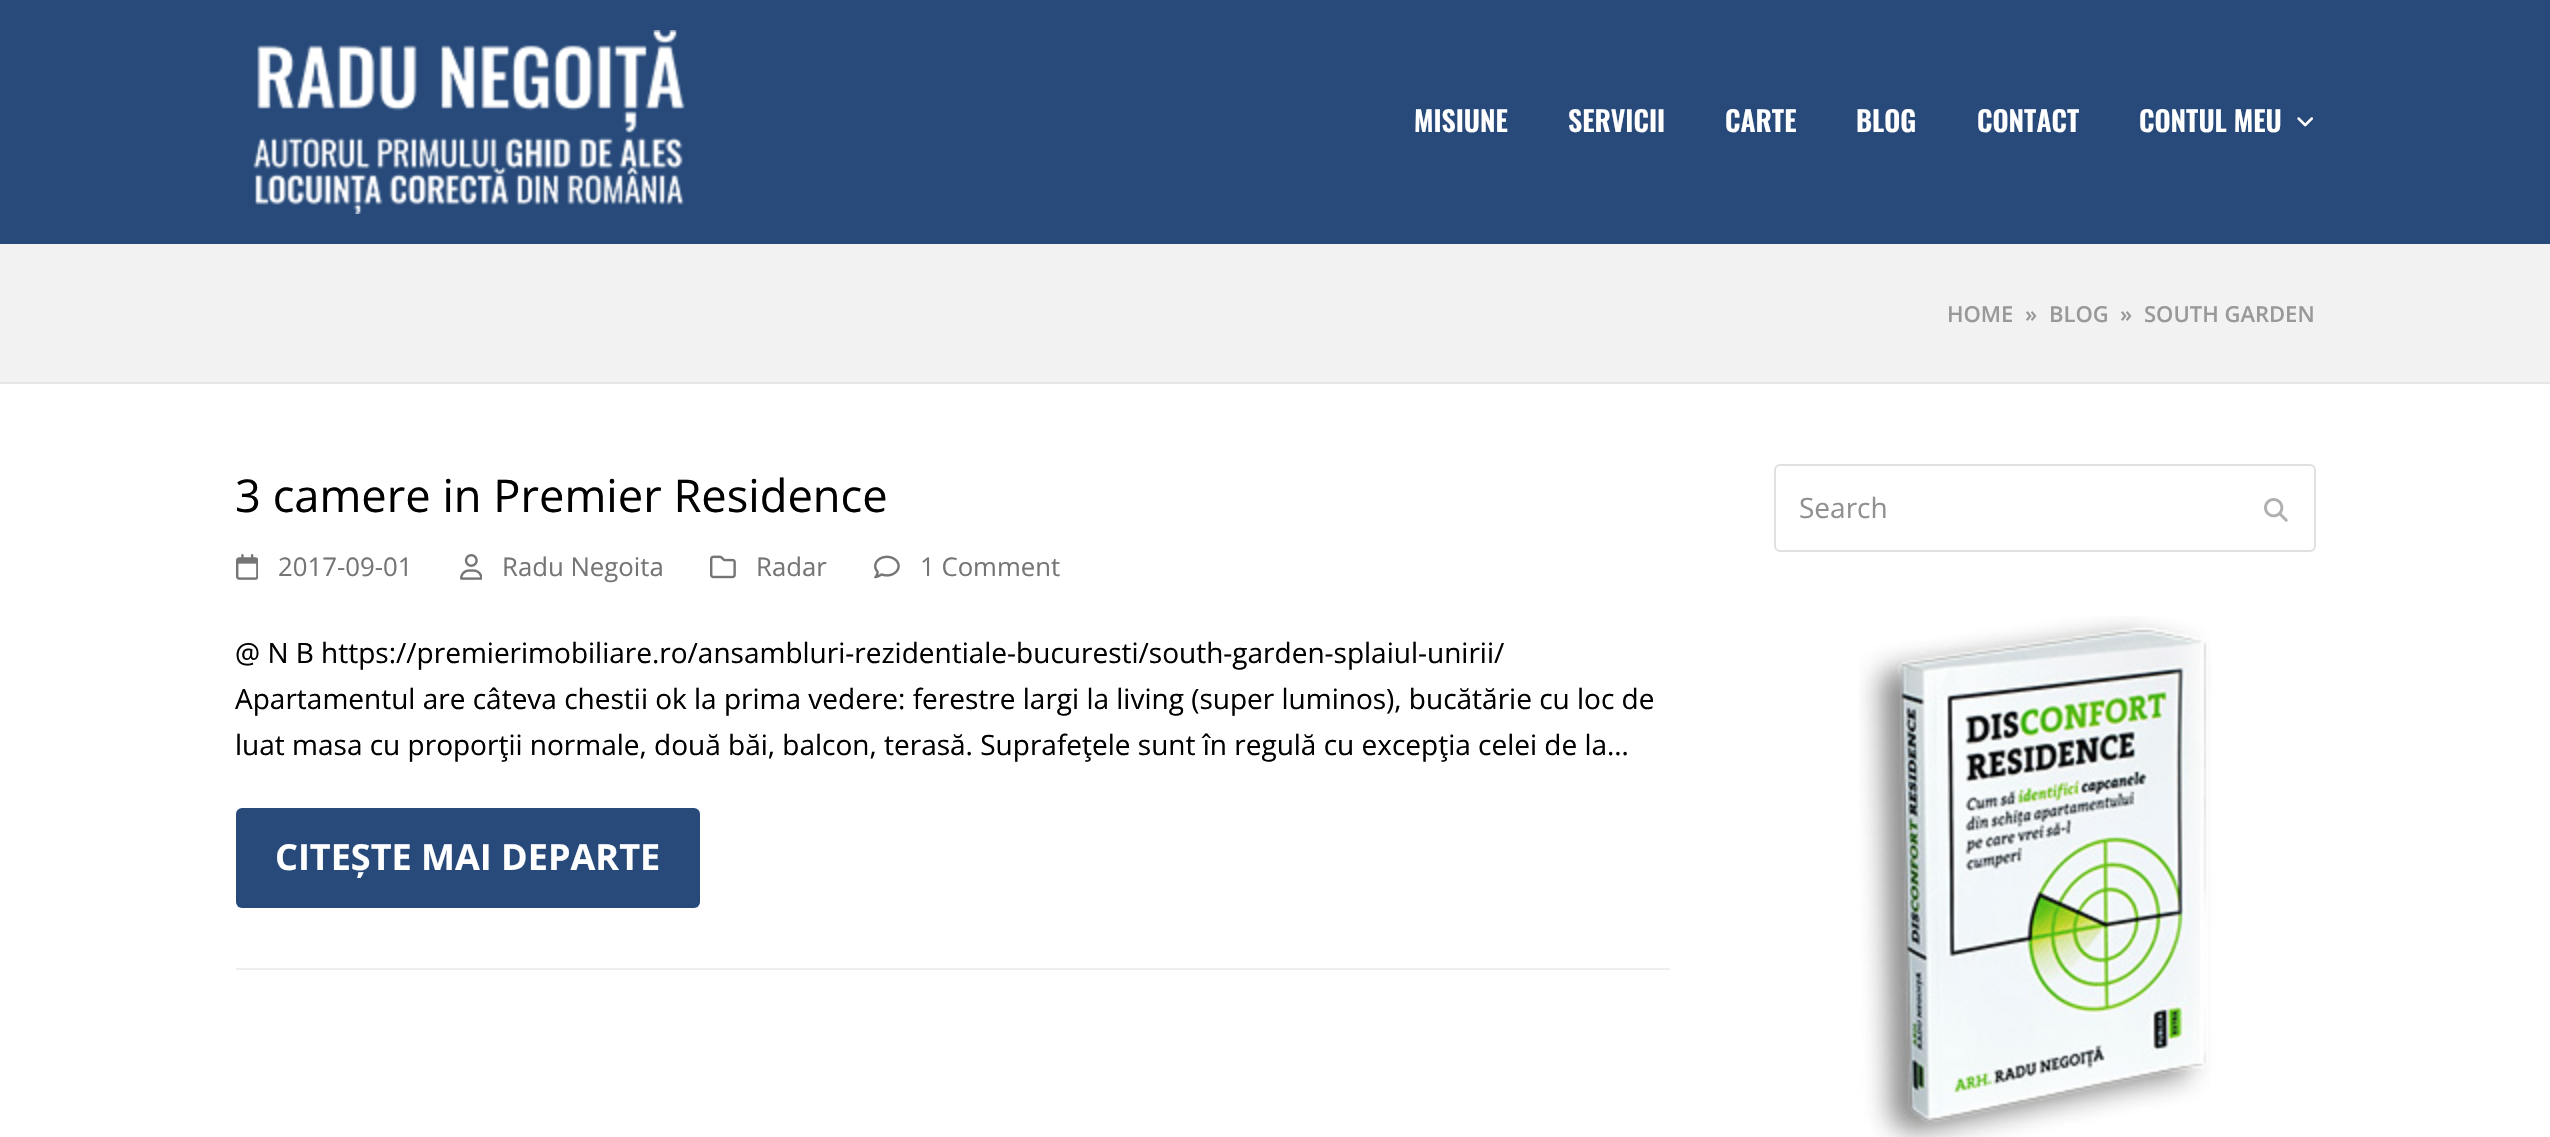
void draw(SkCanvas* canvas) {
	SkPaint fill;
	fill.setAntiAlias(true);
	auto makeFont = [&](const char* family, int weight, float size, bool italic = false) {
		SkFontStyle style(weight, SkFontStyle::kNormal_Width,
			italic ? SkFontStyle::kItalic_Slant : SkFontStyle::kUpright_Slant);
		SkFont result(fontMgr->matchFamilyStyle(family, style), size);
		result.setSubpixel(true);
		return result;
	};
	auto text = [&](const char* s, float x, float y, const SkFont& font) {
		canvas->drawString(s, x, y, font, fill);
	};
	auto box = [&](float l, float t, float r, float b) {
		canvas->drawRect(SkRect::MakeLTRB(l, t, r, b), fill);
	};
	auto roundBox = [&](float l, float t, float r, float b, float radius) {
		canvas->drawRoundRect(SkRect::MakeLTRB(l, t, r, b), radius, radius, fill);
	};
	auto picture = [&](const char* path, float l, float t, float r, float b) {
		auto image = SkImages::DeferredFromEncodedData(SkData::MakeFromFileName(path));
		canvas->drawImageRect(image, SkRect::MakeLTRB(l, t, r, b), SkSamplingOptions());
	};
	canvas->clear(0xFFFFFFFF);
	fill.setColor(0xFF274A7A);
	box(0, 0, 2550, 244);
	picture("image0.png", 253, 30, 685, 214);
	picture("image1.png", 2297, 117, 2313, 127);
	fill.setColor(0xFFF2F2F2);
	box(0, 244, 2550, 382);
	fill.setColor(0xFFE7E7E7);
	box(0, 382, 2550, 384);
	picture("image2.png", 236, 554, 258, 580);
	picture("image3.png", 460, 554, 482, 580);
	picture("image4.png", 710, 555, 736, 579);
	picture("image5.png", 874, 555, 900, 579);
	fill.setColor(0xFF274A7A);
	roundBox(236, 808, 700, 908, 6);
	fill.setColor(0xFFEEEEEE);
	box(236, 968, 1670, 970);
	fill.setStyle(SkPaint::kStroke_Style);
	fill.setStrokeWidth(2);
	fill.setColor(0xFFE0E0E0);
	canvas->drawRoundRect(SkRect::MakeLTRB(1775, 465, 2315, 551), 5, 5, fill);
	picture("image6.png", 2264, 498, 2288, 522);
	picture("image7.png", 1859, 616, 2211, 1137);
	auto font1 = makeFont("Oswald", 600, 28);
	fill.setStyle(SkPaint::kFill_Style);
	fill.setColor(0xFFFFFFFF);
	text("MISIUNE", 1414, 132, font1);
	text("SERVICII", 1568, 132, font1);
	text("CARTE", 1725, 132, font1);
	text("BLOG", 1856, 132, font1);
	text("CONTACT", 1977, 132, font1);
	text("CONTUL MEU", 2139, 132, font1);
	auto font2 = makeFont("Open Sans", 600, 22);
	fill.setColor(0xFF999999);
	text("HOME", 1947, 322, font2);
	text("»", 2025, 322, font2);
	text("BLOG", 2049, 322, font2);
	text("»", 2120, 322, font2);
	text("SOUTH GARDEN", 2144, 322, font2);
	auto font3 = makeFont("Open Sans", 400, 45.25f);
	fill.setColor(0xFF000000);
	text("3 camere in Premier Residence", 235, 512, font3);
	auto font4 = makeFont("Open Sans", 400, 25.75f);
	fill.setColor(0xFF757575);
	text("2017-09-01", 278, 576, font4);
	text("Radu Negoita", 502, 576, font4);
	text("Radar", 756, 576, font4);
	text("1 Comment", 920, 576, font4);
	auto font5 = makeFont("Open Sans", 400, 28);
	fill.setColor(0xFF000000);
	text("@ N B https://premierimobiliare.ro/ansambluri-rezidentiale-bucuresti/south-garden-splaiul-unirii/", 235, 663, font5);
	text("Apartamentul are câteva chestii ok la prima vedere: ferestre largi la living (super luminos), bucătărie cu loc de", 235, 709, font5);
	text("luat masa cu proporţii normale, două băi, balcon, terasă. Suprafeţele sunt în regulă cu excepţia celei de la…", 235, 755, font5);
	auto font6 = makeFont("Open Sans", 700, 36);
	fill.setColor(0xFFFFFFFF);
	text("CITEȘTE MAI DEPARTE", 275, 870, font6);
	fill.setColor(0xFF909090);
	text("Search", 1799, 518, font5);
}
